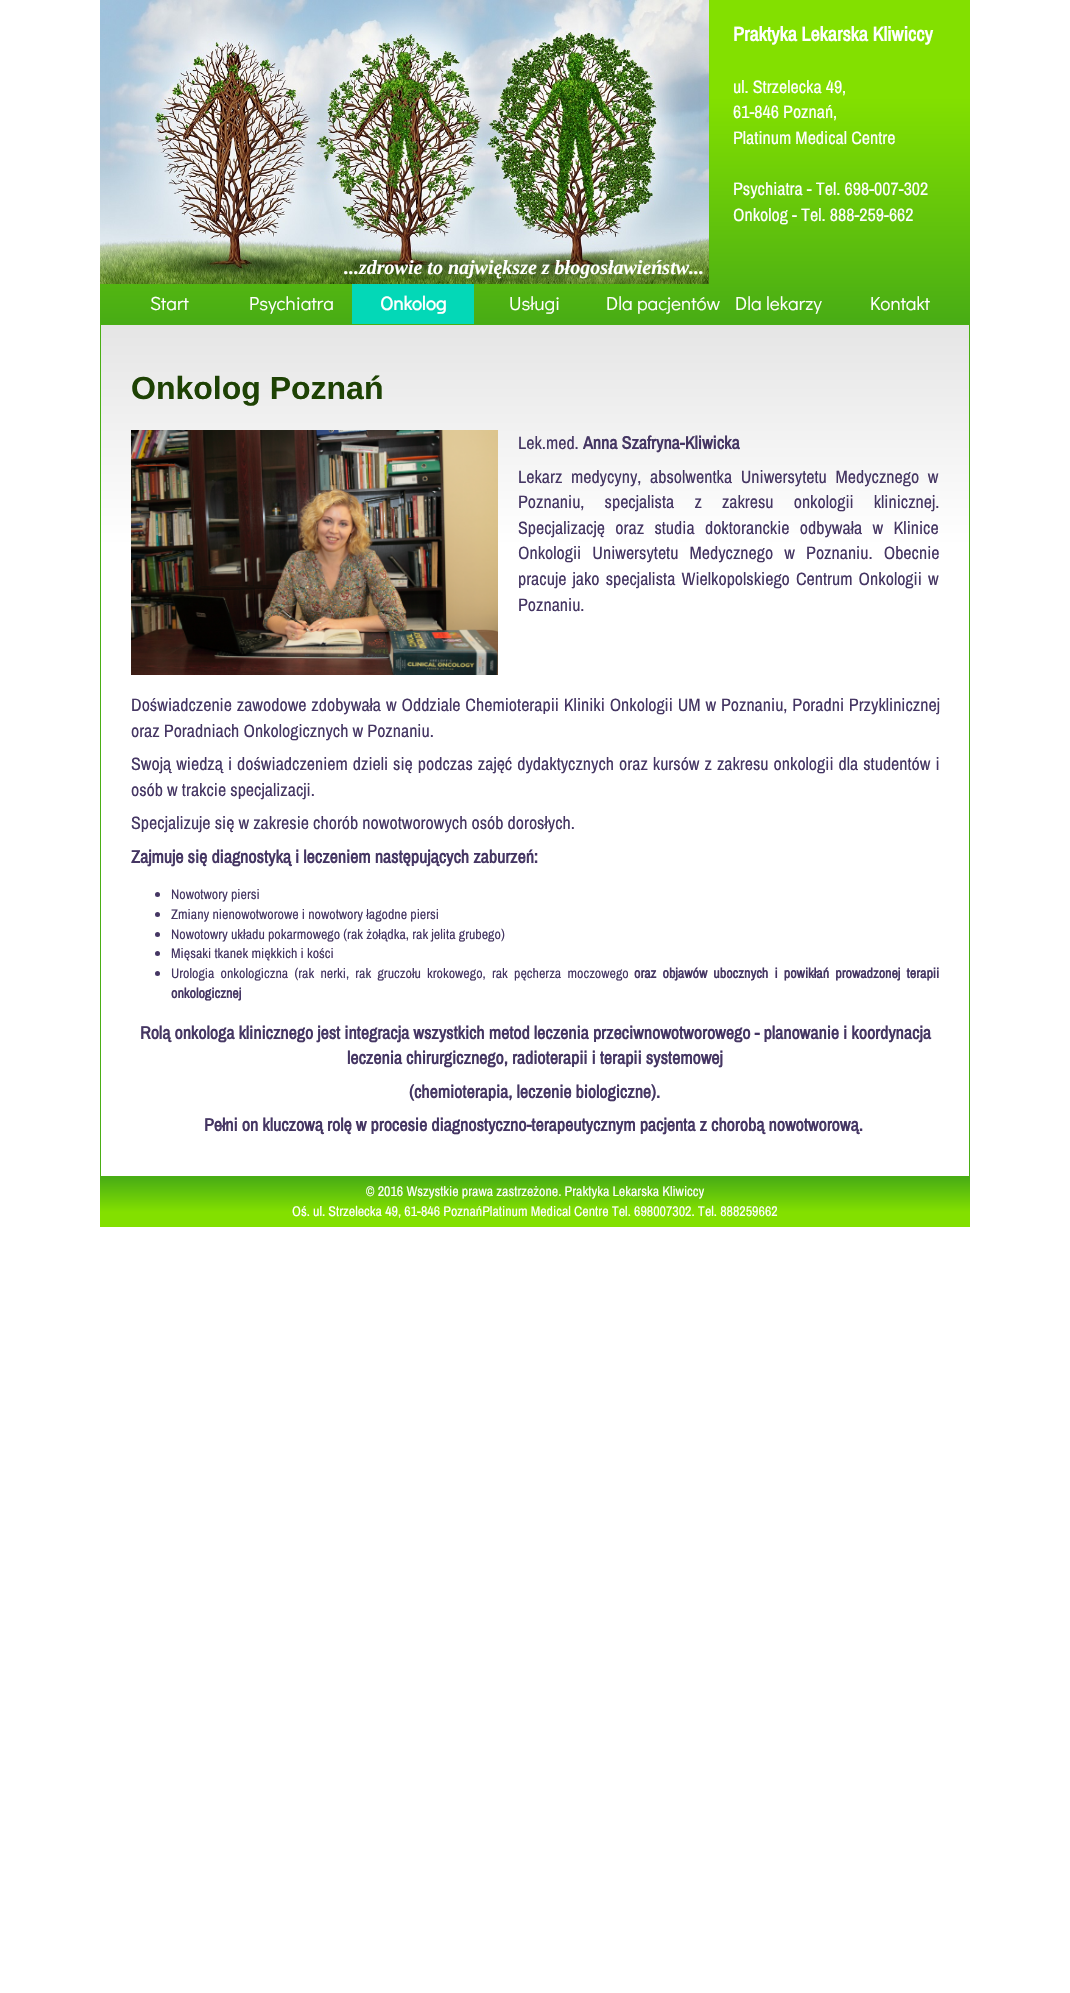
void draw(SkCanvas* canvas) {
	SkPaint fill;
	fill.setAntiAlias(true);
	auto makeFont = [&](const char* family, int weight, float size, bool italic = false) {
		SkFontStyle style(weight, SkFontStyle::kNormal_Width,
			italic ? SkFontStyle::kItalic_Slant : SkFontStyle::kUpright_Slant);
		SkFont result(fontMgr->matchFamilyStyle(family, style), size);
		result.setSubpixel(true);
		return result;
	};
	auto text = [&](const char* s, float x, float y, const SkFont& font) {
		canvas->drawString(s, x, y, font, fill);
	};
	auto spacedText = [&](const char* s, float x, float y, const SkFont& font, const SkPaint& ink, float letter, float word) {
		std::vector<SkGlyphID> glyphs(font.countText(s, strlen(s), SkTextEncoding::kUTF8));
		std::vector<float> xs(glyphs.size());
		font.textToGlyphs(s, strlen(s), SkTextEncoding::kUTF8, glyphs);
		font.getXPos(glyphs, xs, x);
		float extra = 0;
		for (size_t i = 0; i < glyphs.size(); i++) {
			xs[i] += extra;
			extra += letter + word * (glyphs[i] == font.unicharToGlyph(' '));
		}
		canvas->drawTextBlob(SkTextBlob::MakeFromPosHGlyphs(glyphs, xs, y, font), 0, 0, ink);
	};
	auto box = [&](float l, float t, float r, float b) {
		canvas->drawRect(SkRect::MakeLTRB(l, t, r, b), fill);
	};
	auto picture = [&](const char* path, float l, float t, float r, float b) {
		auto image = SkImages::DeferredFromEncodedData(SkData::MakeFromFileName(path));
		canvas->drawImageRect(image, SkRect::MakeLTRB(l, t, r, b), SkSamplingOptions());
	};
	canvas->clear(0xFFFFFFFF);
	{
		const SkColor colors[] = {0xFF83E000, 0xFF83E000, 0xFF48AC15};
		const float stops[] = {0, 0.3f, 1};
		const SkPoint ends[] = {{535, 0}, {535, 324}};
		fill.setShader(SkGradientShader::MakeLinear(ends, colors, stops, 3, SkTileMode::kClamp));
		fill.setAlpha(255);
	}
	box(100, 0, 970, 324);
	picture("image0.png", 100, 0, 709, 284);
	fill.setShader(nullptr);
	fill.setColor(0xFF03D8B7);
	box(352, 284, 474, 324);
	fill.setColor(0xFF4AAE14);
	box(100, 324, 970, 1177);
	{
		const SkColor colors[] = {0xFFE5E5E5, 0xFFFFFFFF};
		const float stops[] = {0, 0.26f};
		const SkPoint ends[] = {{535, 325}, {535, 1176}};
		fill.setShader(SkGradientShader::MakeLinear(ends, colors, stops, 2, SkTileMode::kClamp));
		fill.setAlpha(255);
	}
	box(101, 325, 969, 1176);
	picture("image1.png", 131, 430, 498, 675);
	fill.setShader(nullptr);
	fill.setColor(0xFF453663);
	canvas->drawCircle(157.5f, 894.5f, 2.5f, fill);
	canvas->drawCircle(157.5f, 914.5f, 2.5f, fill);
	canvas->drawCircle(157.5f, 934.5f, 2.5f, fill);
	canvas->drawCircle(157.5f, 953.5f, 2.5f, fill);
	canvas->drawCircle(157.5f, 973.5f, 2.5f, fill);
	{
		const SkColor colors[] = {0xFF48AC15, 0xFF83E000, 0xFF83E000};
		const float stops[] = {0, 0.7f, 1};
		const SkPoint ends[] = {{535, 1177}, {535, 1227}};
		fill.setShader(SkGradientShader::MakeLinear(ends, colors, stops, 3, SkTileMode::kClamp));
		fill.setAlpha(255);
	}
	box(100, 1177, 970, 1227);
	auto font1 = makeFont("Archivo Narrow", 700, 20);
	fill.setShader(nullptr);
	fill.setColor(0xFFFFFFFF);
	text("Praktyka Lekarska Kliwiccy", 733, 41, font1);
	auto font2 = makeFont("Archivo Narrow", 400, 18);
	text("ul. Strzelecka 49,", 733, 93, font2);
	text("61-846 Poznań,", 733, 118, font2);
	text("Platinum Medical Centre", 733, 144, font2);
	text("Psychiatra - Tel. 698-007-302", 733, 195, font2);
	text("Onkolog - Tel. 888-259-662", 733, 221, font2);
	auto font3 = makeFont("Liberation Serif", 700, 20, true);
	text("...zdrowie to największe z błogosławieństw...", 344, 274, font3);
	auto font4 = makeFont("Didact Gothic", 400, 19);
	text("Start", 150, 310, font4);
	text("Psychiatra", 249, 310, font4);
	auto font5 = makeFont("Didact Gothic", 700, 19);
	text("Onkolog", 380, 310, font5);
	text("Usługi", 509, 310, font4);
	text("Dla pacjentów", 606, 310, font4);
	text("Dla lekarzy", 735, 310, font4);
	text("Kontakt", 870, 310, font4);
	auto font6 = makeFont("Liberation Sans", 700, 32);
	fill.setColor(0xFF1E4204);
	text("Onkolog Poznań", 131, 399, font6);
	fill.setColor(0xFF453663);
	text("Lek.med.", 518, 449, font2);
	auto font7 = makeFont("Archivo Narrow", 700, 18);
	text("Anna Szafryna-Kliwicka", 583, 449, font7);
	spacedText("Lekarz medycyny, absolwentka Uniwersytetu Medycznego w", 518, 483, font2, fill, 0, 4.5f);
	spacedText("Poznaniu, specjalista z zakresu onkologii klinicznej.", 518, 508, font2, fill, 0, 16);
	spacedText("Specjalizację oraz studia doktoranckie odbywała w Klinice", 518, 534, font2, fill, 0, 6.25f);
	spacedText("Onkologii Uniwersytetu Medycznego w Poznaniu. Obecnie", 518, 559, font2, fill, 0, 7);
	spacedText("pracuje jako specjalista Wielkopolskiego Centrum Onkologii w", 518, 585, font2, fill, 0, 2);
	text("Poznaniu.", 518, 611, font2);
	spacedText("Doświadczenie zawodowe zdobywała w Oddziale Chemioterapii Kliniki Onkologii UM w Poznaniu, Poradni Przyklinicznej", 131, 711, font2, fill, 0, 0.75f);
	text("oraz Poradniach Onkologicznych w Poznaniu.", 131, 737, font2);
	spacedText("Swoją wiedzą i doświadczeniem dzieli się podczas zajęć dydaktycznych oraz kursów z zakresu onkologii dla studentów i", 131, 770, font2, fill, 0, 0.9f);
	text("osób w trakcie specjalizacji.", 131, 796, font2);
	text("Specjalizuje się w zakresie chorób nowotworowych osób dorosłych.", 131, 829, font2);
	text("Zajmuje się diagnostyką i leczeniem następujących zaburzeń:", 131, 863, font7);
	auto font8 = makeFont("Archivo Narrow", 400, 14);
	text("Nowotwory piersi", 171, 899, font8);
	text("Zmiany nienowotworowe i nowotwory łagodne piersi", 171, 919, font8);
	text("Nowotowry układu pokarmowego (rak żołądka, rak jelita grubego)", 171, 939, font8);
	text("Mięsaki tkanek miękkich i kości", 171, 958, font8);
	spacedText("Urologia onkologiczna (rak nerki, rak gruczołu krokowego, rak pęcherza moczowego", 171, 978, font8, fill, 0, 3);
	auto font9 = makeFont("Archivo Narrow", 700, 14);
	spacedText("oraz objawów ubocznych i powikłań prowadzonej terapii", 634, 978, font9, fill, 0, 3);
	text("onkologicznej", 171, 998, font9);
	text("Rolą onkologa klinicznego jest integracja wszystkich metod leczenia przeciwnowotworowego - planowanie i koordynacja", 140, 1039, font7);
	text("leczenia chirurgicznego, radioterapii i terapii systemowej", 347, 1064, font7);
	text("(chemioterapia, leczenie biologiczne).", 409, 1098, font7);
	text("Pełni on kluczową rolę w procesie diagnostyczno-terapeutycznym pacjenta z chorobą nowotworową.", 204, 1131, font7);
	fill.setColor(0xFFFFFFFF);
	text("© 2016 Wszystkie prawa zastrzeżone. Praktyka Lekarska Kliwiccy", 366, 1196, font8);
	text("Oś. ul. Strzelecka 49, 61-846 PoznańPlatinum Medical Centre Tel. 698007302. Tel. 888259662", 292, 1216, font8);
}
